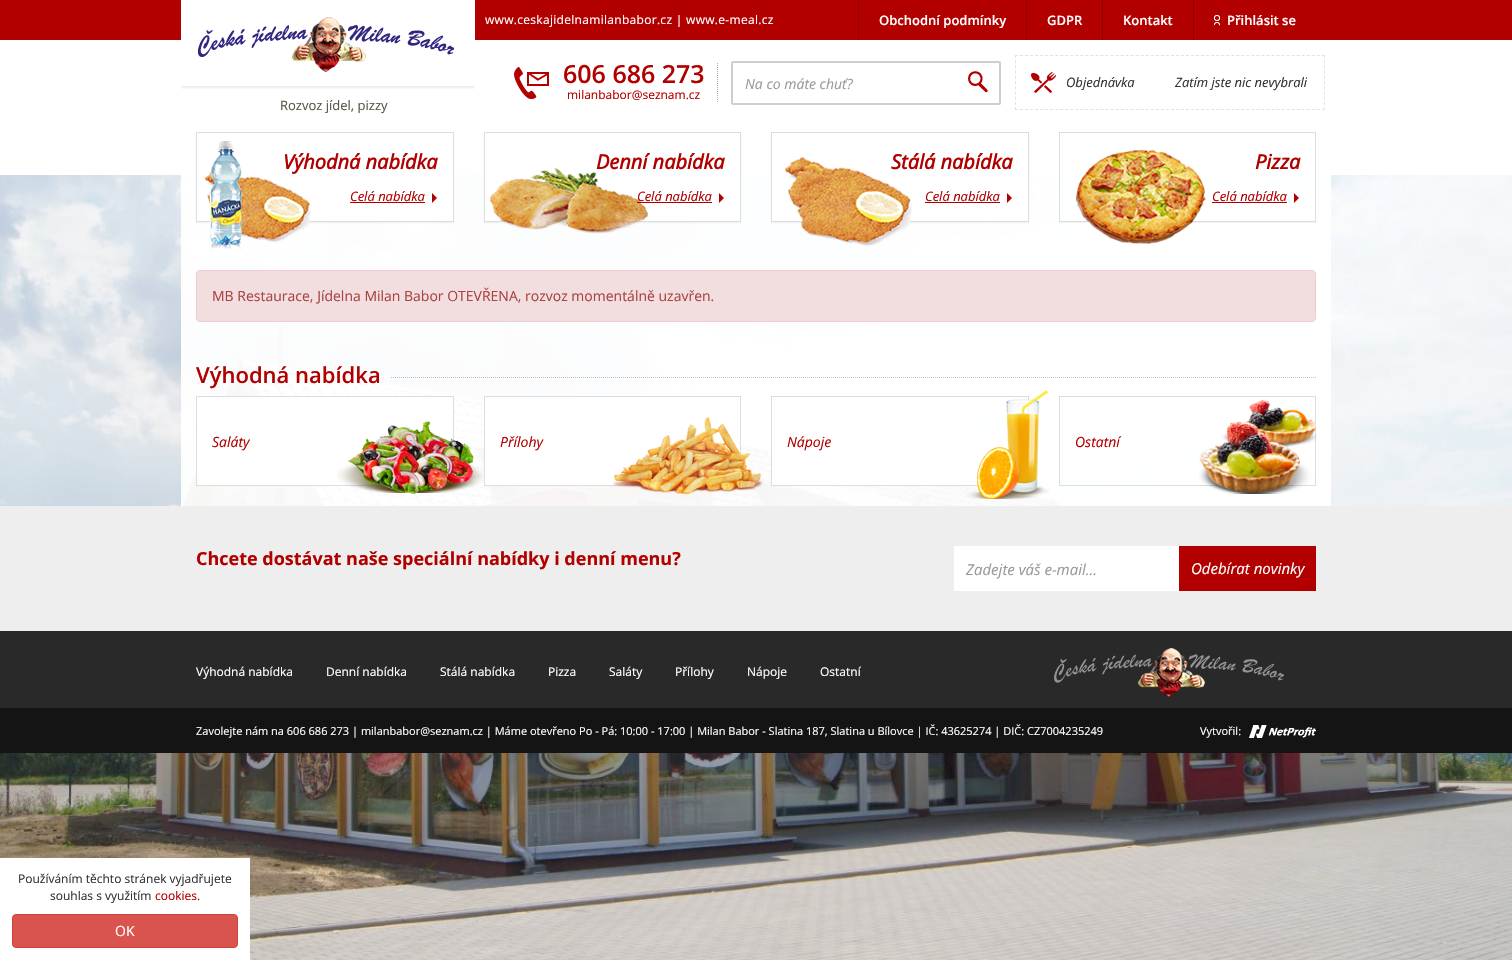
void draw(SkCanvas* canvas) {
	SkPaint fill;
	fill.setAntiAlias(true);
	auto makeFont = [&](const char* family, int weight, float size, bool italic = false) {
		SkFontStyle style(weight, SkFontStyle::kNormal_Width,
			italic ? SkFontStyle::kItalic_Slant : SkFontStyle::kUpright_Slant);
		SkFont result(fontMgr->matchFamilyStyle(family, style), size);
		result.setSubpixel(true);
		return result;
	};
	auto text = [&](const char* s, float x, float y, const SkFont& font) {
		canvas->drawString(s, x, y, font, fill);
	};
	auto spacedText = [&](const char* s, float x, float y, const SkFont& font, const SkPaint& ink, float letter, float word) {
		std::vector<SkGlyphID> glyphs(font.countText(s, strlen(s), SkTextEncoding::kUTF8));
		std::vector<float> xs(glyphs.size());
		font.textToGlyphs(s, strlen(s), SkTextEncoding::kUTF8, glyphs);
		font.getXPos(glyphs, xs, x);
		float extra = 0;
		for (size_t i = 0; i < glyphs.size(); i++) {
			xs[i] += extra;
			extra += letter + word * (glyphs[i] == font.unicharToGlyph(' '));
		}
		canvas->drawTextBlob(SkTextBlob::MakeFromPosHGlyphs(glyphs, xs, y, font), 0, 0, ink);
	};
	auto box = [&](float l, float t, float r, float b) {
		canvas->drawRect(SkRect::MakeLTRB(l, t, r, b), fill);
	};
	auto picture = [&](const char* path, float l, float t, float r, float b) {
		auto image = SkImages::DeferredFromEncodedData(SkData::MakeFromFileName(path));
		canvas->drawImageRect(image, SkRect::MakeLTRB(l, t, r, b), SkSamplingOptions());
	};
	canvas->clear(0xFFFFFFFF);
	fill.setColor(0xFFB20000);
	box(0, 0, 1512, 40);
	picture("image0.png", 181, 0, 475, 89);
	picture("image1.png", 858, 0, 859, 40);
	picture("image1.png", 1026, 0, 1027, 40);
	picture("image1.png", 1102, 0, 1103, 40);
	picture("image1.png", 1193, 0, 1194, 40);
	picture("image2.png", 1214, 15, 1220, 26);
	picture("image3.png", 514, 67, 549, 99);
	fill.setStyle(SkPaint::kStroke_Style);
	fill.setStrokeWidth(1);
	fill.setColor(0xFFAEAEA2);
	fill.setPathEffect(SkDashPathEffect::Make({{1, 1}}, 0));
	canvas->drawPath(SkPathBuilder().moveTo(717.5f, 63).lineTo(717.5f, 103).detach(), fill);
	fill.setPathEffect(nullptr);
	fill.setStrokeWidth(2);
	fill.setColor(0xFFCECECE);
	canvas->drawRoundRect(SkRect::MakeLTRB(732, 62, 1000, 104), 1, 1, fill);
	picture("image4.png", 968, 71, 988, 93);
	picture("image5.png", 1031, 72, 1056, 93);
	fill.setStrokeWidth(1);
	fill.setColor(0xFFE2E2E2);
	fill.setPathEffect(SkDashPathEffect::Make({{3, 2.03f}}, 0));
	canvas->drawPath(SkPathBuilder().moveTo(1015, 55.5f).lineTo(1325, 55.5f).detach(), fill);
	fill.setPathEffect(nullptr);
	fill.setPathEffect(SkDashPathEffect::Make({{3, 2.2f}}, 0));
	canvas->drawPath(SkPathBuilder().moveTo(1324.5f, 55).lineTo(1324.5f, 110).detach(), fill);
	fill.setPathEffect(nullptr);
	fill.setPathEffect(SkDashPathEffect::Make({{3, 2.03f}}, 0));
	canvas->drawPath(SkPathBuilder().moveTo(1015, 109.5f).lineTo(1325, 109.5f).detach(), fill);
	fill.setPathEffect(nullptr);
	fill.setPathEffect(SkDashPathEffect::Make({{3, 2.2f}}, 0));
	canvas->drawPath(SkPathBuilder().moveTo(1015.5f, 55).lineTo(1015.5f, 110).detach(), fill);
	fill.setPathEffect(nullptr);
	picture("image10.png", 0, 175, 1512, 960);
	fill.setStyle(SkPaint::kFill_Style);
	fill.setColor(0xF2FFFFFF);
	box(181, 175, 1331, 270);
	fill.setColor(0x0D000000);
	fill.setMaskFilter(SkMaskFilter::MakeBlur(kNormal_SkBlurStyle, 0.5f));
	canvas->drawRect(SkRect::MakeLTRB(196, 133, 454, 223), fill);
	fill.setMaskFilter(nullptr);
	fill.setColor(0xFFFFFFFF);
	canvas->drawRect(SkRect::MakeLTRB(196.5f, 132.5f, 453.5f, 221.5f), fill);
	fill.setStyle(SkPaint::kStroke_Style);
	fill.setColor(0xFFDDDDDD);
	canvas->drawRect(SkRect::MakeLTRB(196.5f, 132.5f, 453.5f, 221.5f), fill);
	fill.setStyle(SkPaint::kFill_Style);
	fill.setColor(0xFFB20000);
	box(350, 202, 425, 203);
	canvas->drawPath(SkPathBuilder().moveTo(432, 203).lineTo(432, 193).lineTo(437, 198).close().detach(), fill);
	fill.setColor(0x0D000000);
	fill.setMaskFilter(SkMaskFilter::MakeBlur(kNormal_SkBlurStyle, 0.5f));
	canvas->drawRect(SkRect::MakeLTRB(484, 133, 741, 223), fill);
	fill.setMaskFilter(nullptr);
	fill.setColor(0xFFFFFFFF);
	canvas->drawRect(SkRect::MakeLTRB(484.5f, 132.5f, 740.5f, 221.5f), fill);
	fill.setStyle(SkPaint::kStroke_Style);
	fill.setColor(0xFFDDDDDD);
	canvas->drawRect(SkRect::MakeLTRB(484.5f, 132.5f, 740.5f, 221.5f), fill);
	fill.setStyle(SkPaint::kFill_Style);
	fill.setColor(0xFFB20000);
	canvas->drawPath(SkPathBuilder().moveTo(719, 203).lineTo(719, 193).lineTo(724, 198).close().detach(), fill);
	fill.setColor(0x0D000000);
	fill.setMaskFilter(SkMaskFilter::MakeBlur(kNormal_SkBlurStyle, 0.5f));
	canvas->drawRect(SkRect::MakeLTRB(771, 133, 1029, 223), fill);
	fill.setMaskFilter(nullptr);
	fill.setColor(0xFFFFFFFF);
	canvas->drawRect(SkRect::MakeLTRB(771.5f, 132.5f, 1028.5f, 221.5f), fill);
	fill.setStyle(SkPaint::kStroke_Style);
	fill.setColor(0xFFDDDDDD);
	canvas->drawRect(SkRect::MakeLTRB(771.5f, 132.5f, 1028.5f, 221.5f), fill);
	fill.setStyle(SkPaint::kFill_Style);
	fill.setColor(0xFFB20000);
	box(925, 202, 1000, 203);
	canvas->drawPath(SkPathBuilder().moveTo(1007, 203).lineTo(1007, 193).lineTo(1012, 198).close().detach(), fill);
	canvas->save();
	canvas->clipRect(SkRect::MakeLTRB(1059, 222, 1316, 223));
	fill.setColor(0x0D000000);
	fill.setMaskFilter(SkMaskFilter::MakeBlur(kNormal_SkBlurStyle, 0.5f));
	canvas->drawRect(SkRect::MakeLTRB(1059, 133, 1316, 223), fill);
	fill.setMaskFilter(nullptr);
	canvas->restore();
	fill.setStyle(SkPaint::kStroke_Style);
	fill.setColor(0xFFDDDDDD);
	canvas->drawRect(SkRect::MakeLTRB(1059.5f, 132.5f, 1315.5f, 221.5f), fill);
	picture("image9.png", 1076, 149, 1206, 244);
	fill.setStyle(SkPaint::kFill_Style);
	fill.setColor(0xFFB20000);
	box(1212, 202, 1287, 203);
	canvas->drawPath(SkPathBuilder().moveTo(1294, 203).lineTo(1294, 193).lineTo(1299, 198).close().detach(), fill);
	fill.setColor(0xF2FFFFFF);
	box(181, 270, 1331, 396);
	fill.setColor(0xFFF2DEDE);
	canvas->drawRoundRect(SkRect::MakeLTRB(196.5f, 270.5f, 1315.5f, 321.5f), 3.5f, 3.5f, fill);
	fill.setStyle(SkPaint::kStroke_Style);
	fill.setColor(0xFFEBCCD1);
	canvas->drawRoundRect(SkRect::MakeLTRB(196.5f, 270.5f, 1315.5f, 321.5f), 3.5f, 3.5f, fill);
	canvas->save();
	canvas->clipRect(SkRect::MakeLTRB(196, 342, 1316, 396));
	fill.setColor(0xFFC1C1BA);
	fill.setPathEffect(SkDashPathEffect::Make({{1, 1}}, 0));
	canvas->drawPath(SkPathBuilder().moveTo(391, 377.5f).lineTo(1501, 377.5f).detach(), fill);
	fill.setPathEffect(nullptr);
	canvas->restore();
	fill.setStyle(SkPaint::kFill_Style);
	fill.setColor(0xF2FFFFFF);
	box(181, 396, 1331, 506);
	fill.setColor(0xFFFFFFFF);
	canvas->drawRect(SkRect::MakeLTRB(196.5f, 396.5f, 453.5f, 485.5f), fill);
	fill.setStyle(SkPaint::kStroke_Style);
	fill.setColor(0xFFDDDDDD);
	canvas->drawRect(SkRect::MakeLTRB(196.5f, 396.5f, 453.5f, 485.5f), fill);
	picture("image11.png", 337, 421, 484, 494);
	fill.setStyle(SkPaint::kFill_Style);
	fill.setColor(0xFFFFFFFF);
	canvas->drawRect(SkRect::MakeLTRB(484.5f, 396.5f, 740.5f, 485.5f), fill);
	fill.setStyle(SkPaint::kStroke_Style);
	fill.setColor(0xFFDDDDDD);
	canvas->drawRect(SkRect::MakeLTRB(484.5f, 396.5f, 740.5f, 485.5f), fill);
	picture("image12.png", 612, 417, 763, 494);
	fill.setStyle(SkPaint::kFill_Style);
	fill.setColor(0xFFFFFFFF);
	box(772, 451, 972, 485);
	fill.setStyle(SkPaint::kStroke_Style);
	fill.setColor(0xFFDDDDDD);
	canvas->drawRect(SkRect::MakeLTRB(771.5f, 396.5f, 1028.5f, 485.5f), fill);
	picture("image13.png", 966, 390, 1050, 500);
	canvas->drawRect(SkRect::MakeLTRB(1059.5f, 396.5f, 1315.5f, 485.5f), fill);
	picture("image14.png", 1199, 400, 1317, 494);
	fill.setStyle(SkPaint::kFill_Style);
	fill.setColor(0xFFEEEEEE);
	box(0, 506, 1512, 631);
	fill.setColor(0xFFFFFFFF);
	box(954, 546, 1179, 591);
	fill.setColor(0xFFB20000);
	box(1179, 546, 1316, 591);
	fill.setColor(0xFF292929);
	box(0, 631, 1512, 708);
	picture("image15.png", 1054, 648, 1284, 697);
	fill.setColor(0xFF141414);
	box(0, 708, 1512, 753);
	picture("image16.png", 1249, 725, 1316, 738);
	fill.setColor(0xFFFFFFFF);
	box(0, 858, 250, 960);
	fill.setColor(0xFFD9534F);
	canvas->drawRoundRect(SkRect::MakeLTRB(12.5f, 914.5f, 237.5f, 947.5f), 3.5f, 3.5f, fill);
	fill.setStyle(SkPaint::kStroke_Style);
	fill.setColor(0xFFD43F3A);
	canvas->drawRoundRect(SkRect::MakeLTRB(12.5f, 914.5f, 237.5f, 947.5f), 3.5f, 3.5f, fill);
	auto font1 = makeFont("Open Sans", 400, 12);
	fill.setStyle(SkPaint::kFill_Style);
	fill.setColor(0xFFFFFFFF);
	spacedText("www.ceskajidelnamilanbabor.cz | www.e-meal.cz", 485, 24, font1, fill, 0.3f, 0);
	auto font2 = makeFont("Open Sans", 400, 13);
	fill.setColor(0xFF575748);
	text("Rozvoz jídel, pizzy", 280, 110, font2);
	auto font3 = makeFont("Open Sans", 600, 13);
	fill.setColor(0xFFFFFFFF);
	text("Obchodní podmínky", 879, 25, font3);
	text("GDPR", 1047, 25, font3);
	text("Kontakt", 1123, 25, font3);
	text("Přihlásit se", 1227, 25, font3);
	auto font4 = makeFont("Open Sans", 600, 25);
	fill.setColor(0xFFB20000);
	text("606 686 273", 563, 83, font4);
	text("milanbabor@seznam.cz", 567, 99, font1);
	auto font5 = makeFont("Open Sans", 400, 14, true);
	fill.setColor(0xFF999999);
	text("Na co máte chuť?", 745, 89, font5);
	auto font6 = makeFont("Open Sans", 400, 13, true);
	fill.setColor(0xFF333333);
	text("Objednávka", 1066, 87, font6);
	text("Zatím jste nic nevybrali", 1175, 87, font6);
	auto font7 = makeFont("Open Sans", 700, 20, true);
	fill.setColor(0xFFB20000);
	text("Výhodná nabídka", 283, 169, font7);
	picture("image6.png", 204, 141, 311, 251);
	text("Celá nabídka", 350, 201, font6);
	text("Denní nabídka", 596, 169, font7);
	picture("image7.png", 490, 168, 648, 234);
	text("Celá nabídka", 637, 201, font6);
	box(637, 202, 712, 203);
	text("Stálá nabídka", 891, 169, font7);
	picture("image8.png", 784, 157, 912, 246);
	text("Celá nabídka", 925, 201, font6);
	text("Pizza", 1255, 169, font7);
	text("Celá nabídka", 1212, 201, font6);
	auto font8 = makeFont("Open Sans", 400, 14);
	fill.setColor(0xFFA94442);
	text("MB Restaurace, Jídelna Milan Babor OTEVŘENA, rozvoz momentálně uzavřen.", 212, 301, font8);
	auto font9 = makeFont("Open Sans", 600, 22);
	fill.setColor(0xFFB20000);
	text("Výhodná nabídka", 196, 383, font9);
	text("Saláty", 212, 447, font5);
	text("Přílohy", 500, 447, font5);
	text("Nápoje", 787, 447, font5);
	text("Ostatní", 1075, 447, font5);
	auto font10 = makeFont("Open Sans", 700, 18);
	text("Chcete dostávat naše speciální nabídky i denní menu?", 196, 565, font10);
	auto font11 = makeFont("Open Sans", 400, 15, true);
	fill.setColor(0xFF999999);
	text("Zadejte váš e-mail...", 966, 575, font11);
	fill.setColor(0xFFFFFFFF);
	text("Odebírat novinky", 1191, 574, font11);
	text("Výhodná nabídka", 196, 676, font1);
	text("Denní nabídka", 326, 676, font1);
	text("Stálá nabídka", 440, 676, font1);
	text("Pizza", 548, 676, font1);
	text("Saláty", 609, 676, font1);
	text("Přílohy", 675, 676, font1);
	text("Nápoje", 747, 676, font1);
	text("Ostatní", 820, 676, font1);
	auto font12 = makeFont("Open Sans", 400, 11);
	text("Zavolejte nám na 606 686 273 | milanbabor@seznam.cz | Máme otevřeno Po - Pá: 10:00 - 17:00 | Milan Babor - Slatina 187, Slatina u Bílovce | IČ: 43625274 | DIČ: CZ7004235249", 196, 735, font12);
	text("Vytvořil:", 1200, 735, font12);
	fill.setColor(0xFF333333);
	text("Používáním těchto stránek vyjadřujete", 18, 883, font1);
	text("souhlas s využitím", 50, 900, font1);
	fill.setColor(0xFFB20000);
	text("cookies", 155, 900, font1);
	fill.setColor(0xFF333333);
	text(".", 197, 900, font1);
	fill.setColor(0xFFFFFFFF);
	text("OK", 115, 936, font8);
}
